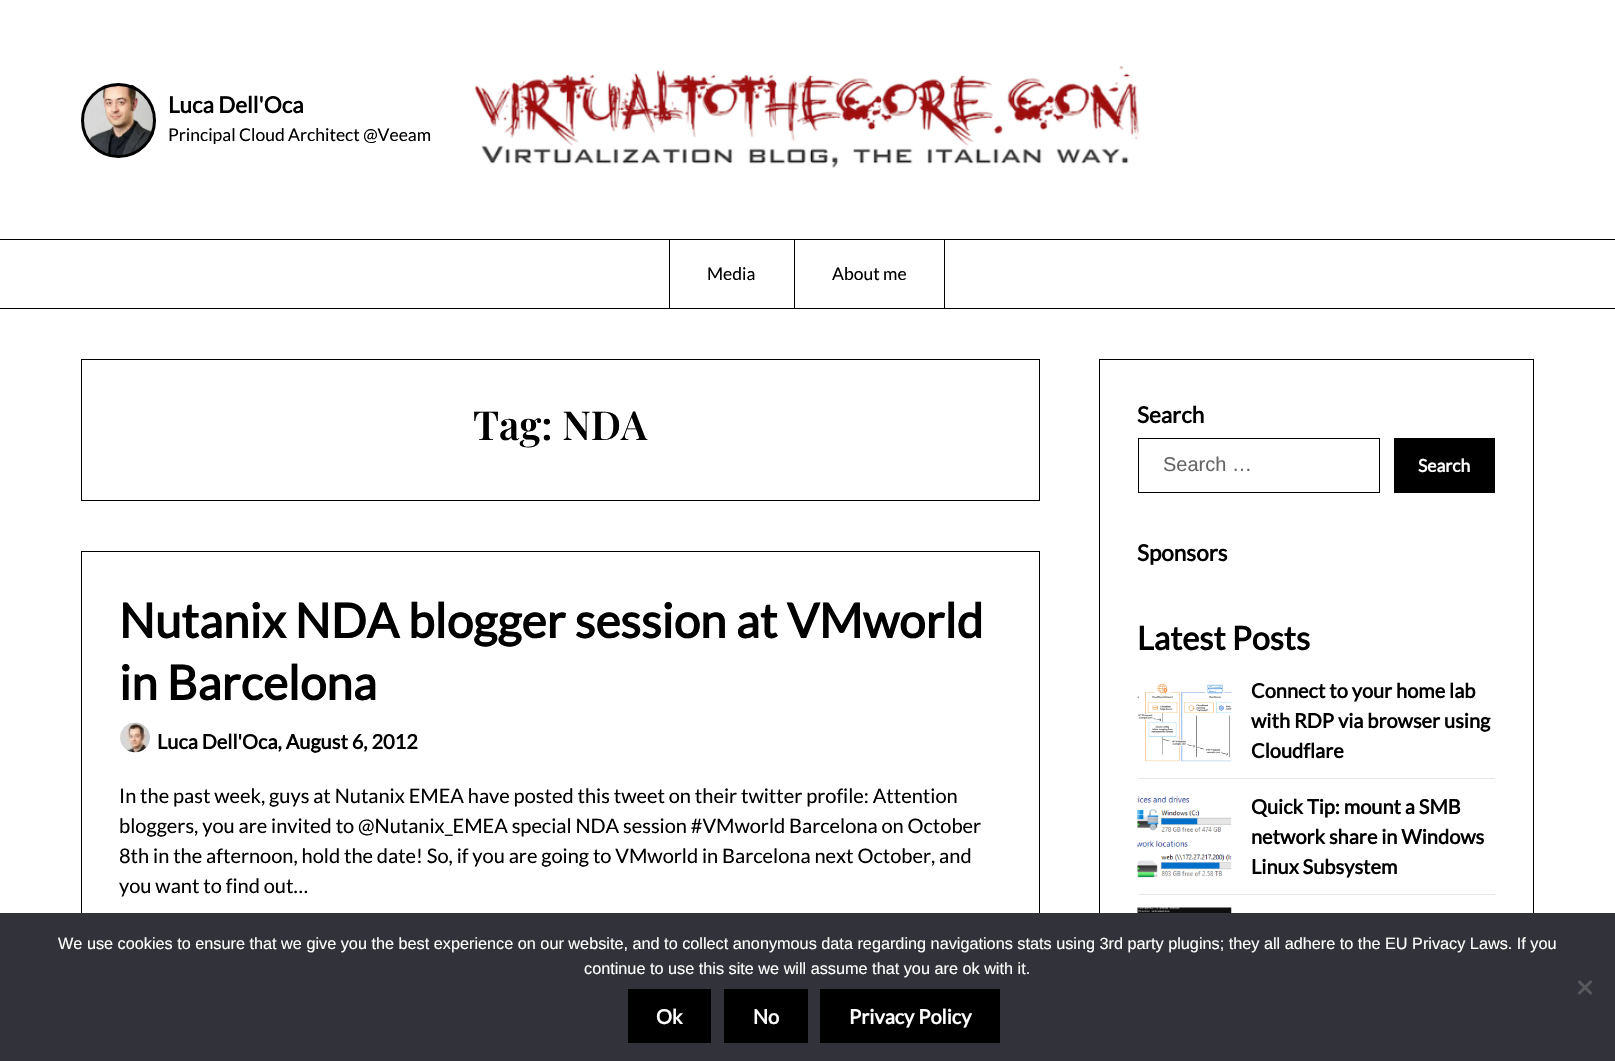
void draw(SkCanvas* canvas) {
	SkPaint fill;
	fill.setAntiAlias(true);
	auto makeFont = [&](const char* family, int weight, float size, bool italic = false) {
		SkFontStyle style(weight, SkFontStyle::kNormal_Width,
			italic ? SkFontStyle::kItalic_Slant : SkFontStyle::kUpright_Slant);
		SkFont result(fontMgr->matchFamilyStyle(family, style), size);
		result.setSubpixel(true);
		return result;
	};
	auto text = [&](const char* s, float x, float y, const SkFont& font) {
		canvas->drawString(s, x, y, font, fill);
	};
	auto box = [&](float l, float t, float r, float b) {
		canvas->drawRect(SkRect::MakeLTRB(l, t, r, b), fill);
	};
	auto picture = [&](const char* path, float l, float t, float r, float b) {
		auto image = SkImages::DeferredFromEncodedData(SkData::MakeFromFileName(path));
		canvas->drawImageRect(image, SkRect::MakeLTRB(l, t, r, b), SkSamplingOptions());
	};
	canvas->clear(0xFFFFFFFF);
	fill.setColor(0xFF000000);
	box(0, 308, 1615, 309);
	picture("image0.png", 83, 85, 154, 155);
	fill.setStyle(SkPaint::kStroke_Style);
	fill.setStrokeWidth(3);
	canvas->drawCircle(118.5f, 120.5f, 36, fill);
	picture("image1.png", 474, 65, 1140, 168);
	fill.setStyle(SkPaint::kFill_Style);
	box(0, 239, 1615, 240);
	fill.setStyle(SkPaint::kStroke_Style);
	fill.setStrokeWidth(1);
	canvas->drawRect(SkRect::MakeLTRB(669.5f, 239.5f, 794.5f, 308.5f), fill);
	canvas->drawRect(SkRect::MakeLTRB(794.5f, 239.5f, 944.5f, 308.5f), fill);
	canvas->drawRect(SkRect::MakeLTRB(81.5f, 359.5f, 1039.5f, 500.5f), fill);
	canvas->drawRect(SkRect::MakeLTRB(81.5f, 551.5f, 1039.5f, 1048.5f), fill);
	picture("image2.png", 120, 722, 150, 753);
	canvas->drawRect(SkRect::MakeLTRB(1099.5f, 359.5f, 1533.5f, 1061.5f), fill);
	canvas->drawRect(SkRect::MakeLTRB(1138.5f, 438.5f, 1379.5f, 492.5f), fill);
	fill.setStyle(SkPaint::kFill_Style);
	box(1394, 438, 1495, 493);
	fill.setColor(0xFFE6E6E6);
	box(1138, 778, 1495, 779);
	picture("image3.png", 1137, 683, 1232, 762);
	box(1138, 894, 1495, 895);
	picture("image4.png", 1137, 796, 1232, 878);
	picture("image5.png", 1137, 907, 1232, 913);
	fill.setColor(0xFF32323A);
	box(0, 913, 1615, 1061);
	fill.setColor(0xFF59595D);
	canvas->drawPath(SkPathBuilder().moveTo(1590.5f, 980).lineTo(1592.5f, 982).lineTo(1579.5f, 995).lineTo(1577.5f, 993).close().detach(), fill);
	canvas->drawPath(SkPathBuilder().moveTo(1577.5f, 982).lineTo(1579.5f, 980).lineTo(1592.5f, 993).lineTo(1590.5f, 995).close().detach(), fill);
	fill.setColor(0xFF000000);
	box(628, 989, 711, 1043);
	box(724, 989, 808, 1043);
	box(820, 989, 1000, 1043);
	auto font1 = makeFont("Lato", 700, 22.5f);
	text("Luca Dell'Oca", 168, 113, font1);
	auto font2 = makeFont("Lato", 400, 17.5f);
	text("Principal Cloud Architect @Veeam", 168, 141, font2);
	text("Media", 707, 280, font2);
	text("About me", 832, 280, font2);
	auto font3 = makeFont("Playfair Display", 600, 40);
	text("Tag: NDA", 473, 440, font3);
	auto font4 = makeFont("Lato", 700, 47.5f);
	text("Nutanix NDA blogger session at VMworld", 119, 638, font4);
	text("in Barcelona", 119, 700, font4);
	auto font5 = makeFont("Lato", 700, 20);
	text("Luca Dell'Oca, August 6, 2012", 157, 749, font5);
	auto font6 = makeFont("Lato", 400, 20);
	text("In the past week, guys at Nutanix EMEA have posted this tweet on their twitter profile: Attention", 119, 803, font6);
	text("bloggers, you are invited to @Nutanix_EMEA special NDA session #VMworld Barcelona on October", 119, 833, font6);
	text("8th in the afternoon, hold the date! So, if you are going to VMworld in Barcelona next October, and", 119, 863, font6);
	text("you want to find out…", 119, 893, font6);
	text("Search", 1137, 423, font1);
	auto font7 = makeFont("Liberation Sans", 400, 20);
	fill.setColor(0xFF666666);
	text("Search …", 1163, 471, font7);
	auto font8 = makeFont("Lato", 700, 17.5f);
	fill.setColor(0xFFFFFFFF);
	text("Search", 1418, 472, font8);
	fill.setColor(0xFF000000);
	text("Sponsors", 1137, 561, font1);
	auto font9 = makeFont("Lato", 700, 32.5f);
	text("Latest Posts", 1137, 650, font9);
	text("Connect to your home lab", 1251, 698, font5);
	text("with RDP via browser using", 1251, 728, font5);
	text("Cloudflare", 1251, 758, font5);
	text("Quick Tip: mount a SMB", 1251, 814, font5);
	text("network share in Windows", 1251, 844, font5);
	text("Linux Subsystem", 1251, 874, font5);
	auto font10 = makeFont("Liberation Sans", 400, 16.25f);
	fill.setColor(0xFFFFFFFF);
	text("We use cookies to ensure that we give you the best experience on our website, and to collect anonymous data regarding navigations stats using 3rd party plugins; they all adhere to the EU Privacy Laws. If you", 58, 949, font10);
	text("continue to use this site we will assume that you are ok with it.", 584, 974, font10);
	text("Ok", 656, 1024, font5);
	text("No", 753, 1024, font5);
	text("Privacy Policy", 849, 1024, font5);
}
